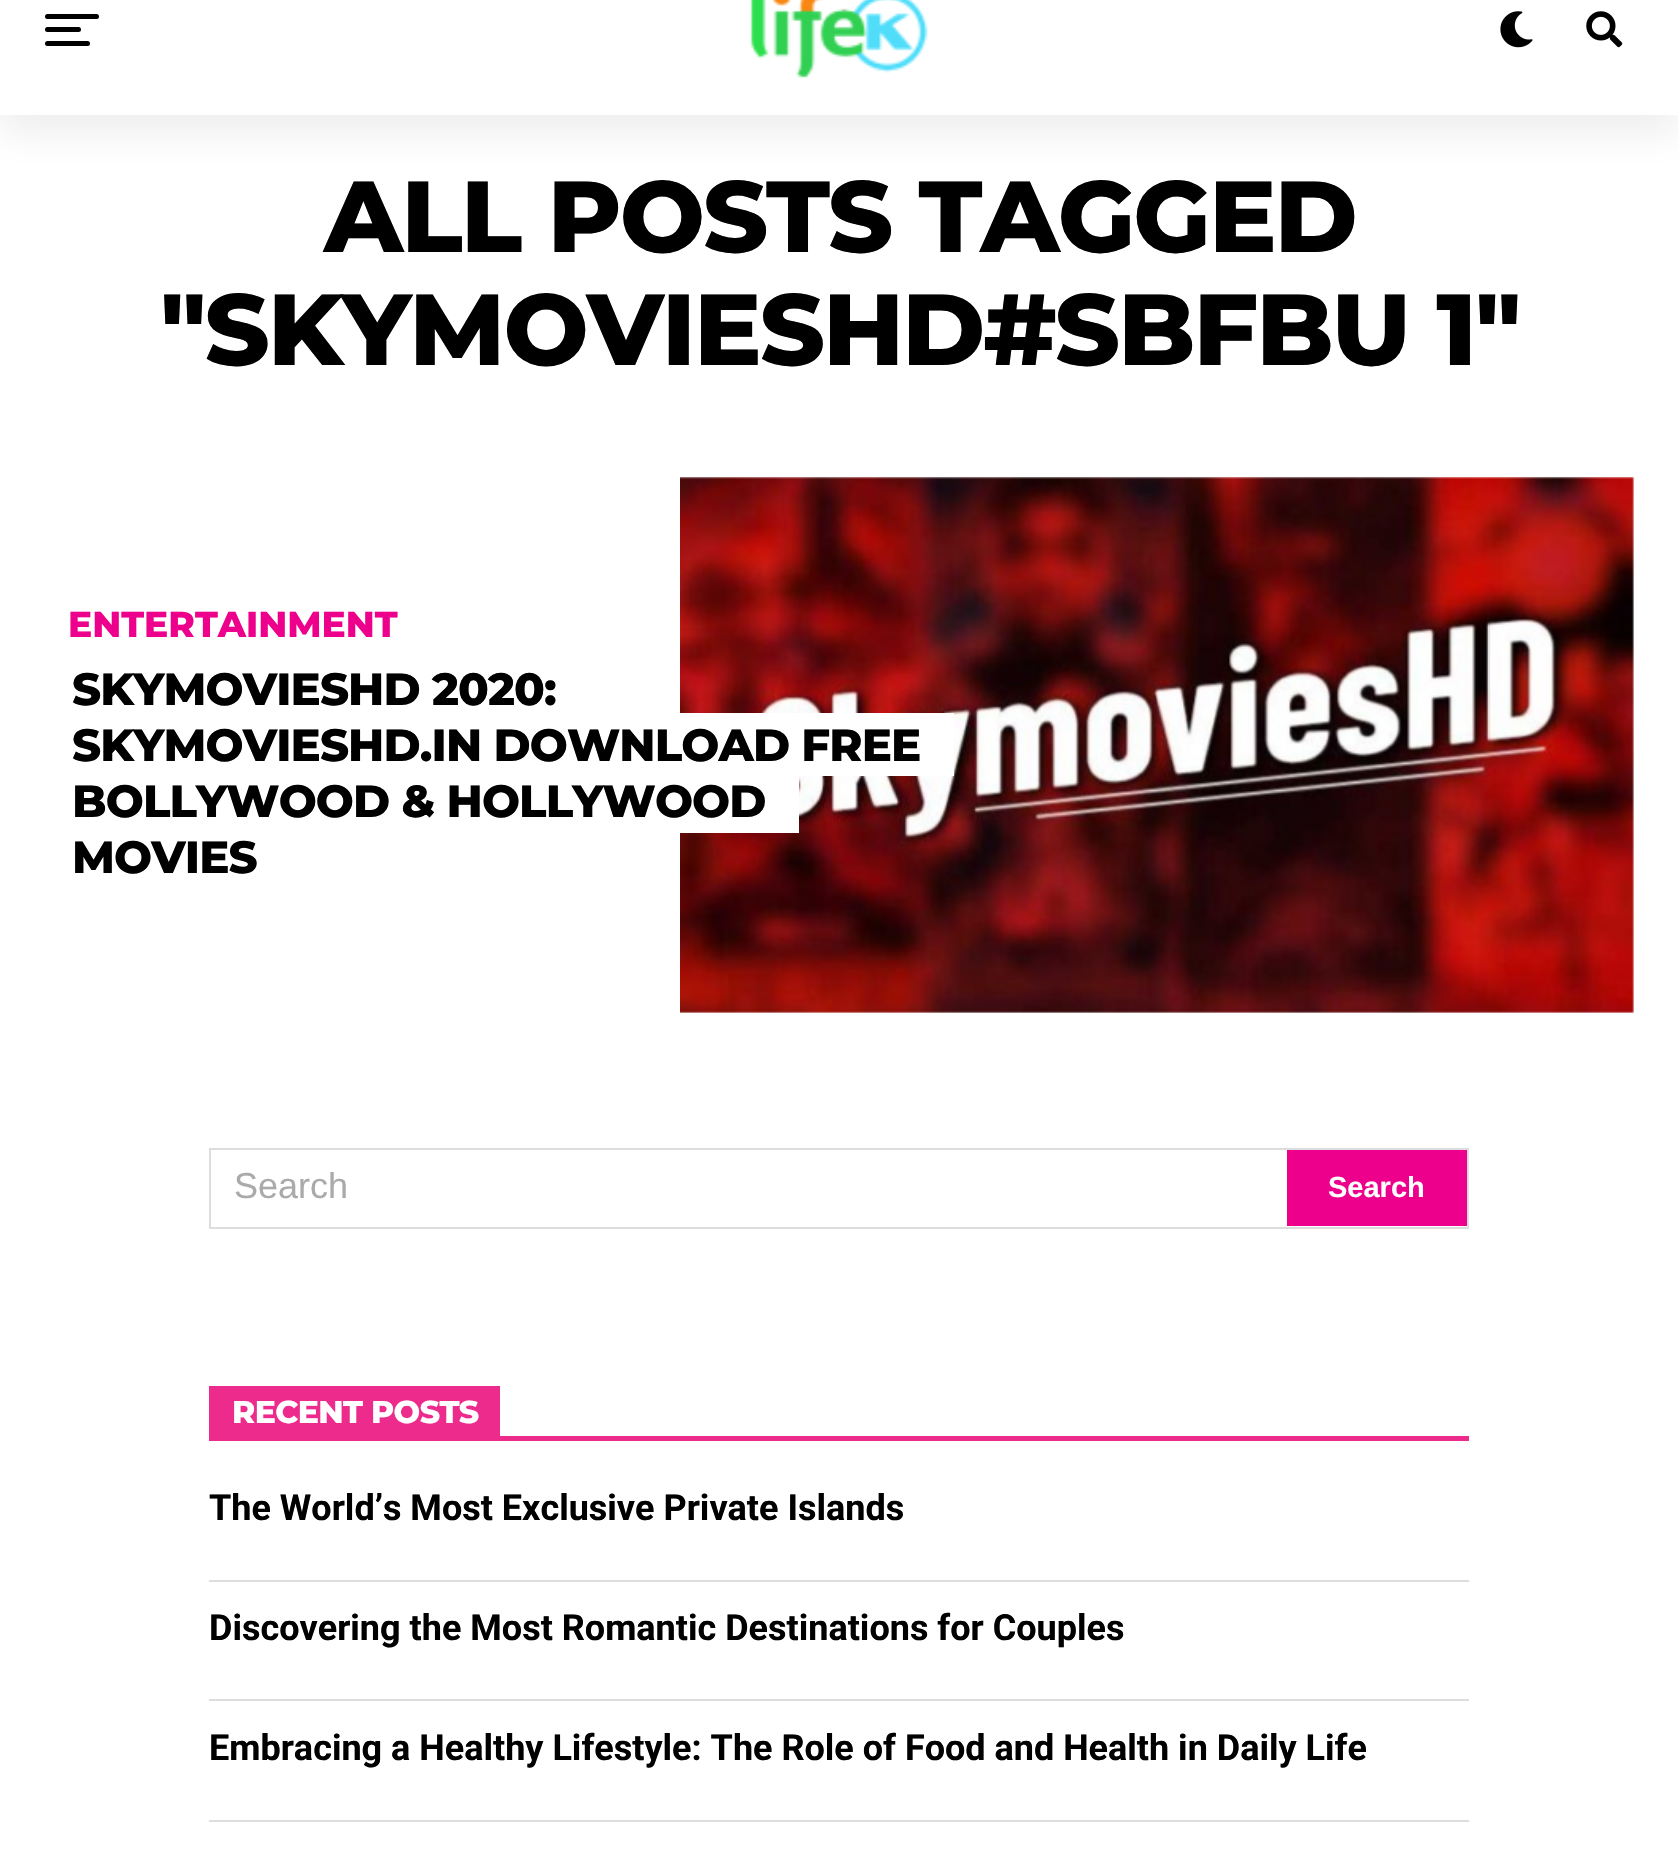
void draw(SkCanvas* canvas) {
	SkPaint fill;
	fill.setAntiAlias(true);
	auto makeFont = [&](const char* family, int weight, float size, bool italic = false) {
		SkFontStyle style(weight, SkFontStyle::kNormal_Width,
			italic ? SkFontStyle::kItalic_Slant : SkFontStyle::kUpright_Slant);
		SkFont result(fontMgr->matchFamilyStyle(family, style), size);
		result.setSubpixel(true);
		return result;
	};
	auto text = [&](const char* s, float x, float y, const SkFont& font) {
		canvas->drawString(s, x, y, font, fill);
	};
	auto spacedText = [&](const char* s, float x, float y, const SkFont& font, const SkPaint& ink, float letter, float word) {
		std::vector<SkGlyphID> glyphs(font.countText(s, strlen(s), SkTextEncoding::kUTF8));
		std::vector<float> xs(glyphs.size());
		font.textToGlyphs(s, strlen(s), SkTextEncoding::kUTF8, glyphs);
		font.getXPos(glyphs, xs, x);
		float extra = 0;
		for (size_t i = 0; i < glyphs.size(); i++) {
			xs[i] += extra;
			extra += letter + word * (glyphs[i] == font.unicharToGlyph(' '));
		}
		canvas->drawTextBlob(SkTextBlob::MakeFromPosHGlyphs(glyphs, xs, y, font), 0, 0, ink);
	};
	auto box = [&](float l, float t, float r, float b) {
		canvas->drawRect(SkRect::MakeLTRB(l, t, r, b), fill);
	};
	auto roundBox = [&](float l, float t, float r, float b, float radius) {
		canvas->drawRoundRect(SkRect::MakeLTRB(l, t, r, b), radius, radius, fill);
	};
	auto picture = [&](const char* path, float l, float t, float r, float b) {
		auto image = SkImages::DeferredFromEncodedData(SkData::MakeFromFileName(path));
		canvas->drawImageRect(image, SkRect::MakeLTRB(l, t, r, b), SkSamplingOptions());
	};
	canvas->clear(0xFFFFFFFF);
	fill.setColor(0x1415151E);
	fill.setMaskFilter(SkMaskFilter::MakeBlur(kNormal_SkBlurStyle, 18));
	canvas->drawRect(SkRect::MakeLTRB(0, -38, 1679, 133), fill);
	fill.setMaskFilter(nullptr);
	fill.setColor(0xFFFFFFFF);
	box(0, 0, 1678, 115);
	fill.setColor(0xFF000000);
	roundBox(45, 14, 99, 19, 2.5f);
	roundBox(45, 27, 81, 32, 2.5f);
	roundBox(45, 41, 90, 46, 2.5f);
	picture("image0.png", 750, 0, 928, 78);
	picture("image1.png", 1500, 11, 1533, 48);
	picture("image2.png", 1586, 11, 1623, 48);
	picture("image3.png", 680, 477, 1634, 1013);
	fill.setColor(0xFFFFFFFF);
	canvas->drawPath(SkPathBuilder().moveTo(106, 713).lineTo(920, 713).lineTo(920, 776).lineTo(954, 776).lineTo(954, 713).close().detach(), fill);
	box(680, 713, 920, 776);
	canvas->drawPath(SkPathBuilder().moveTo(50, 770).lineTo(50, 833).lineTo(743, 833).lineTo(743, 832).lineTo(72, 832).lineTo(72, 770).close().detach(), fill);
	canvas->drawPath(SkPathBuilder().moveTo(106, 832).lineTo(106, 833).lineTo(799, 833).lineTo(799, 770).lineTo(765, 770).lineTo(765, 832).close().detach(), fill);
	box(680, 776, 765, 832);
	fill.setStyle(SkPaint::kStroke_Style);
	fill.setStrokeWidth(2);
	fill.setColor(0xFFDDDDDD);
	canvas->drawRect(SkRect::MakeLTRB(210, 1149, 1468, 1228), fill);
	fill.setStyle(SkPaint::kFill_Style);
	fill.setColor(0xFFEC008C);
	box(1287, 1150, 1467, 1226);
	fill.setColor(0xFFEC2B8C);
	box(209, 1436, 1469, 1441);
	box(209, 1386, 500, 1436);
	fill.setColor(0xFFDDDDDD);
	box(209, 1580, 1469, 1582);
	box(209, 1699, 1469, 1701);
	box(209, 1820, 1469, 1822);
	auto font1 = makeFont("Montserrat", 800, 100.75f);
	fill.setColor(0xFF000000);
	spacedText("ALL POSTS TAGGED", 324, 252, font1, fill, -2, 0);
	spacedText("\"SKYMOVIESHD#SBFBU 1\"", 160, 365, font1, fill, -2, 0);
	auto font2 = makeFont("Montserrat", 800, 36);
	fill.setColor(0xFFEC008C);
	text("ENTERTAINMENT", 68, 637, font2);
	auto font3 = makeFont("Montserrat", 800, 45);
	fill.setColor(0xFF000000);
	spacedText("SKYMOVIESHD 2020:", 72, 705, font3, fill, -0.9f, 0);
	spacedText("SKYMOVIESHD.IN DOWNLOAD FREE", 72, 761, font3, fill, -0.9f, 0);
	spacedText("BOLLYWOOD & HOLLYWOOD", 72, 817, font3, fill, -0.9f, 0);
	spacedText("MOVIES", 72, 873, font3, fill, -0.9f, 0);
	auto font4 = makeFont("Liberation Sans", 400, 36);
	fill.setColor(0xFFAAAAAA);
	text("Search", 234, 1198, font4);
	auto font5 = makeFont("Liberation Sans", 700, 29);
	fill.setColor(0xFFFFFFFF);
	text("Search", 1328, 1197, font5);
	auto font6 = makeFont("Montserrat", 800, 31.5f);
	spacedText("RECENT POSTS", 232, 1423, font6, fill, -0.6f, 0);
	auto font7 = makeFont("Roboto", 700, 36);
	fill.setColor(0xFF000000);
	text("The World’s Most Exclusive Private Islands", 209, 1520, font7);
	text("Discovering the Most Romantic Destinations for Couples", 209, 1640, font7);
	text("Embracing a Healthy Lifestyle: The Role of Food and Health in Daily Life", 209, 1760, font7);
}
